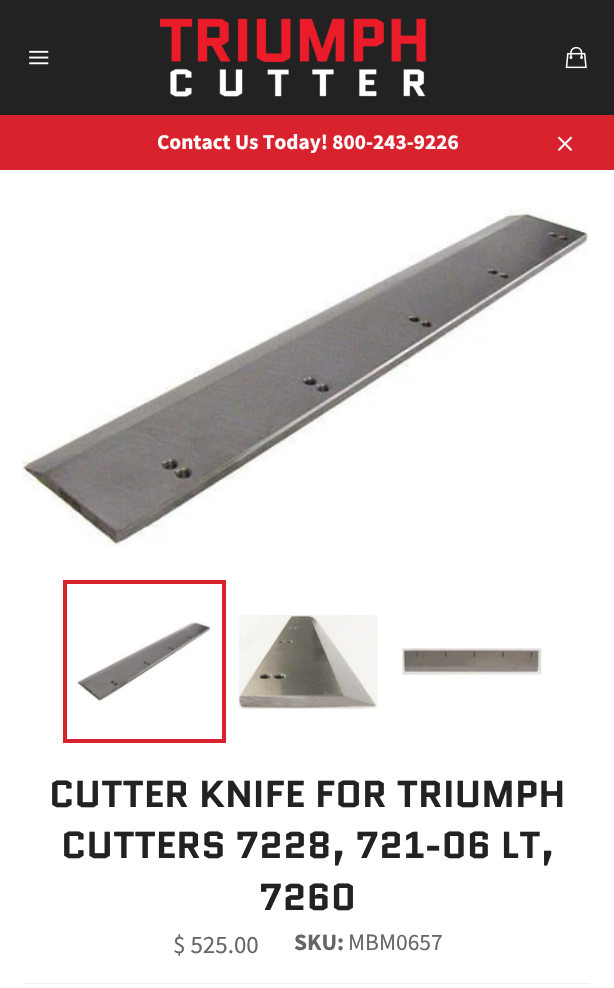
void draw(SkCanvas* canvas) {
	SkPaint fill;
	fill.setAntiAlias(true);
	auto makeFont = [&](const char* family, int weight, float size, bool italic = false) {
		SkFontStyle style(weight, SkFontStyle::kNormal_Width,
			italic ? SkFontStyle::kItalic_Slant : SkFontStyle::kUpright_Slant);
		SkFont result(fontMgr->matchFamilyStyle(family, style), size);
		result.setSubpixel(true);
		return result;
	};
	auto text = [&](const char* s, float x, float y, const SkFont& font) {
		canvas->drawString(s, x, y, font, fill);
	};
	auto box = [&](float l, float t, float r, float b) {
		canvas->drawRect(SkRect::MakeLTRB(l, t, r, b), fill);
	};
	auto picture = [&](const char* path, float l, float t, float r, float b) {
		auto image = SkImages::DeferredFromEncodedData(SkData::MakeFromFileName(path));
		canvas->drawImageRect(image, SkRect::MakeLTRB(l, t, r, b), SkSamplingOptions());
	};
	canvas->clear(0xFFFFFFFF);
	fill.setColor(0xFF222222);
	box(0, 0, 614, 115);
	picture("image0.png", 29, 50, 49, 65);
	picture("image1.png", 160, 18, 426, 97);
	picture("image2.png", 565, 46, 587, 69);
	fill.setColor(0xFFD8232F);
	box(0, 115, 614, 170);
	picture("image3.png", 557, 136, 573, 151);
	picture("image4.png", 22, 208, 588, 547);
	picture("image5.png", 77, 621, 211, 702);
	fill.setStyle(SkPaint::kStroke_Style);
	fill.setStrokeWidth(4);
	canvas->drawRect(SkRect::MakeLTRB(65, 582, 224, 741), fill);
	picture("image6.png", 238, 614, 378, 709);
	picture("image7.png", 402, 648, 542, 675);
	fill.setStyle(SkPaint::kFill_Style);
	fill.setColor(0xFFF0F0F0);
	box(25, 983, 590, 984);
	auto font1 = makeFont("Source Sans Pro", 700, 21.25f);
	fill.setColor(0xFFFFFFFF);
	text("Contact Us Today! 800-243-9226", 157, 149, font1);
	auto font2 = makeFont("Quantico", 700, 37.5f);
	fill.setColor(0xFF222222);
	text("CUTTER KNIFE FOR TRIUMPH", 49, 807, font2);
	text("CUTTERS 7228, 721-06 LT,", 61, 858, font2);
	text("7260", 259, 910, font2);
	auto font3 = makeFont("Source Sans Pro", 400, 25);
	fill.setColor(0xFF666666);
	text("$ 525.00", 173, 953, font3);
	auto font4 = makeFont("Source Sans Pro", 700, 23.5f);
	text("SKU:", 294, 950, font4);
	auto font5 = makeFont("Source Sans Pro", 400, 23.5f);
	text("MBM0657", 348, 950, font5);
}
